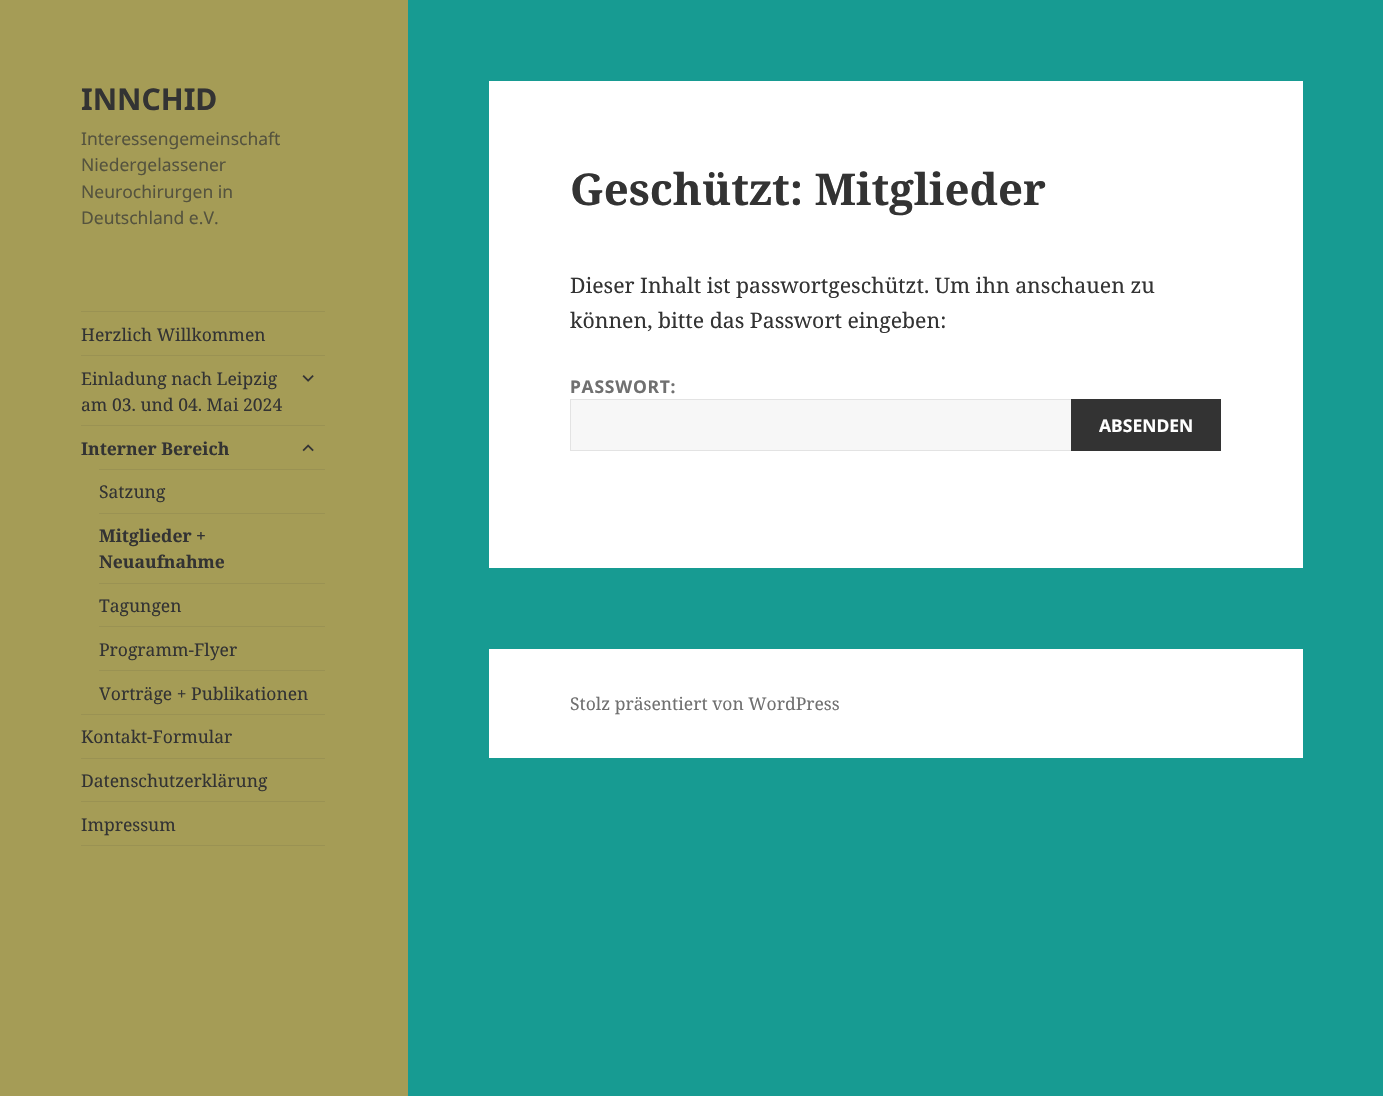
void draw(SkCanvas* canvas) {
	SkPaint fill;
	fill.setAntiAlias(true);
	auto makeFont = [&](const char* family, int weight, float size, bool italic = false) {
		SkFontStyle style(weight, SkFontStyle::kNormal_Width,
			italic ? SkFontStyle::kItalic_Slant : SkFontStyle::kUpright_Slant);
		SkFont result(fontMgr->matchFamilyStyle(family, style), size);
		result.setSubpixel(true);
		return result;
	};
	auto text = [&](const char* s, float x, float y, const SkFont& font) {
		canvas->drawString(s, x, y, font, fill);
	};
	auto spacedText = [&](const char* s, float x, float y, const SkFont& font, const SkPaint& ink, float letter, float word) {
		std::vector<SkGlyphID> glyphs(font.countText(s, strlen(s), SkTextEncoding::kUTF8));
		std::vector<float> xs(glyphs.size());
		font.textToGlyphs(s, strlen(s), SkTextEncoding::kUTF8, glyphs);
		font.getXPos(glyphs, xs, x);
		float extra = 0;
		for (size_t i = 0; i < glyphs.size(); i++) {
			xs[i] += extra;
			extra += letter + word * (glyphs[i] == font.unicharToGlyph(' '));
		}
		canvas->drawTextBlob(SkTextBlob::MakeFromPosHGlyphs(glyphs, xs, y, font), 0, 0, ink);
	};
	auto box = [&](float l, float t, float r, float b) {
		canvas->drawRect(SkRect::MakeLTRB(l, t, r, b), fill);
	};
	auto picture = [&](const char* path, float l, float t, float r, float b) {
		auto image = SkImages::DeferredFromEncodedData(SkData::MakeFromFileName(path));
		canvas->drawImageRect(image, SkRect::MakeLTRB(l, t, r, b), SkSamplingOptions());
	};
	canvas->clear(0xFF179B92);
	fill.setColor(0xFFA59C56);
	box(0, 0, 408, 1096);
	fill.setColor(0xFF9A9253);
	box(81, 311, 325, 312);
	box(81, 845, 325, 846);
	box(81, 355, 325, 356);
	picture("image0.png", 302, 375, 314, 382);
	box(81, 425, 325, 426);
	picture("image1.png", 302, 444, 314, 452);
	box(99, 469, 325, 470);
	box(99, 513, 325, 514);
	box(99, 583, 325, 584);
	box(99, 626, 325, 627);
	box(99, 670, 325, 671);
	box(81, 714, 325, 715);
	box(81, 758, 325, 759);
	box(81, 801, 325, 802);
	fill.setColor(0xFFFFFFFF);
	box(489, 81, 1303, 568);
	fill.setColor(0xFFF7F7F7);
	box(571, 400, 1071, 450);
	fill.setStyle(SkPaint::kStroke_Style);
	fill.setStrokeWidth(1);
	fill.setColor(0xFFE3E3E3);
	canvas->drawRect(SkRect::MakeLTRB(570.5f, 399.5f, 1220.5f, 450.5f), fill);
	fill.setStyle(SkPaint::kFill_Style);
	fill.setColor(0xFF333333);
	box(1071, 399, 1221, 451);
	fill.setColor(0xFFFFFFFF);
	box(489, 649, 1303, 758);
	auto font1 = makeFont("Noto Sans", 700, 30);
	fill.setColor(0xFF333333);
	text("INNCHID", 81, 110, font1);
	auto font2 = makeFont("Noto Sans", 400, 17.5f);
	fill.setColor(0xFF55533E);
	text("Interessengemeinschaft", 81, 145, font2);
	text("Niedergelassener", 81, 171, font2);
	text("Neurochirurgen in", 81, 198, font2);
	text("Deutschland e.V.", 81, 224, font2);
	auto font3 = makeFont("Noto Serif", 400, 17.5f);
	fill.setColor(0xFF333333);
	text("Herzlich Willkommen", 81, 341, font3);
	text("Einladung nach Leipzig", 81, 385, font3);
	text("am 03. und 04. Mai 2024", 81, 411, font3);
	auto font4 = makeFont("Noto Serif", 700, 17.5f);
	text("Interner Bereich", 81, 455, font4);
	text("Satzung", 99, 498, font3);
	text("Mitglieder +", 99, 542, font4);
	text("Neuaufnahme", 99, 568, font4);
	text("Tagungen", 99, 612, font3);
	text("Programm-Flyer", 99, 656, font3);
	text("Vorträge + Publikationen", 99, 700, font3);
	text("Kontakt-Formular", 81, 743, font3);
	text("Datenschutzerklärung", 81, 787, font3);
	text("Impressum", 81, 831, font3);
	auto font5 = makeFont("Noto Serif", 700, 43.75f);
	text("Geschützt: Mitglieder", 570, 205, font5);
	auto font6 = makeFont("Noto Serif", 400, 21.25f);
	text("Dieser Inhalt ist passwortgeschützt. Um ihn anschauen zu", 570, 293, font6);
	text("können, bitte das Passwort eingeben:", 570, 328, font6);
	auto font7 = makeFont("Noto Sans", 700, 17.5f);
	fill.setColor(0xFF707070);
	spacedText("PASSWORT:", 570, 393, font7, fill, 0.75f, 0);
	fill.setColor(0xFFFFFFFF);
	text("ABSENDEN", 1099, 432, font7);
	fill.setColor(0xFF707070);
	text("Stolz präsentiert von WordPress", 570, 710, font3);
}
